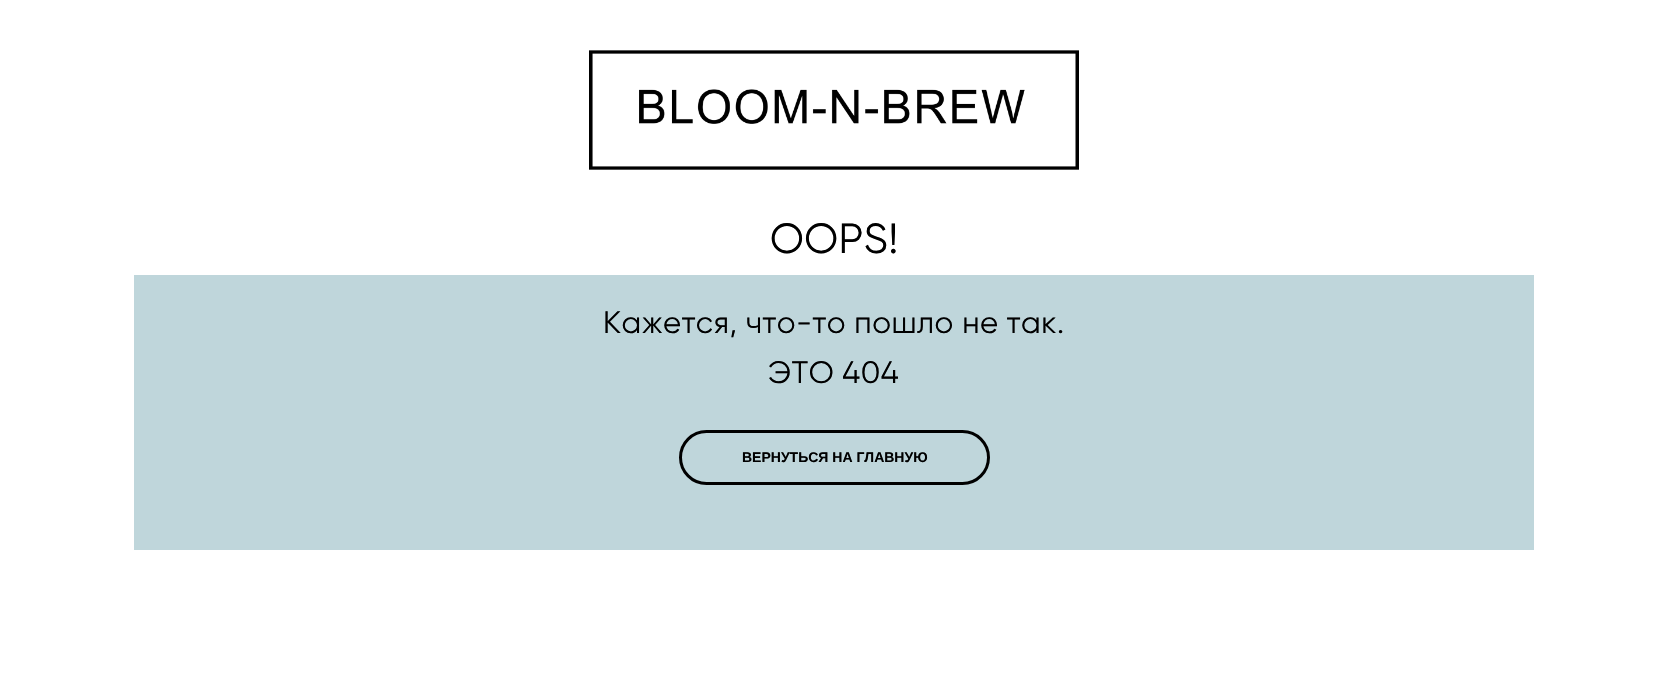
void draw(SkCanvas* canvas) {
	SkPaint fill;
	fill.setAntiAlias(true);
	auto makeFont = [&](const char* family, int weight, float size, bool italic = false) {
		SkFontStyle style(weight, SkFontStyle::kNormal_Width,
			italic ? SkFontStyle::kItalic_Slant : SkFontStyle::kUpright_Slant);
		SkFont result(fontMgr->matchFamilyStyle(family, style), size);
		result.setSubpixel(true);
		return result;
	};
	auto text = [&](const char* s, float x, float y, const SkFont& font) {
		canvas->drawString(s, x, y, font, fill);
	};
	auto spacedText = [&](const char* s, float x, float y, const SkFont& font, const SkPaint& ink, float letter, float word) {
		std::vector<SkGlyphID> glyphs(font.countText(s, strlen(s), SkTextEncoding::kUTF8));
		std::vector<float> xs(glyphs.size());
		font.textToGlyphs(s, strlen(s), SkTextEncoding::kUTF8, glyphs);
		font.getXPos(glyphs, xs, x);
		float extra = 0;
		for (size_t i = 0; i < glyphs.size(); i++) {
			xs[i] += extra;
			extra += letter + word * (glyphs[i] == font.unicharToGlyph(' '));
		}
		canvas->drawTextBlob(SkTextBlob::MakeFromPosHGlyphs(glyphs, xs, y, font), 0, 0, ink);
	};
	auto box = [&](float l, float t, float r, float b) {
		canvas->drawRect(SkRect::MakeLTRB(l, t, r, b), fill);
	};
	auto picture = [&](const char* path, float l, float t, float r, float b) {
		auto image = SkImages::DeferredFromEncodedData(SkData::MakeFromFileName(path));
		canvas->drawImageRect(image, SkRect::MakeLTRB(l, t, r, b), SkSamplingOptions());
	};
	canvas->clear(0xFFFFFFFF);
	picture("image0.png", 589, 50, 1079, 170);
	fill.setColor(0xFFBFD6DB);
	box(134, 275, 1534, 550);
	fill.setStyle(SkPaint::kStroke_Style);
	fill.setStrokeWidth(3);
	fill.setColor(0xFF000000);
	canvas->drawRoundRect(SkRect::MakeLTRB(680.5f, 431.5f, 988.5f, 483.5f), 26, 26, fill);
	auto font1 = makeFont("Gilroy", 400, 42);
	fill.setStyle(SkPaint::kFill_Style);
	spacedText("OOPS!", 770, 253, font1, fill, 0.5f, 0);
	auto font2 = makeFont("Gilroy", 400, 31);
	spacedText("Кажется, что-то пошло не так.", 603, 333, font2, fill, 0.5f, 0);
	spacedText("ЭТО 404", 768, 383, font2, fill, 0.5f, 0);
	auto font3 = makeFont("Liberation Sans", 700, 14);
	text("ВЕРНУТЬСЯ НА ГЛАВНУЮ", 742, 462, font3);
}
